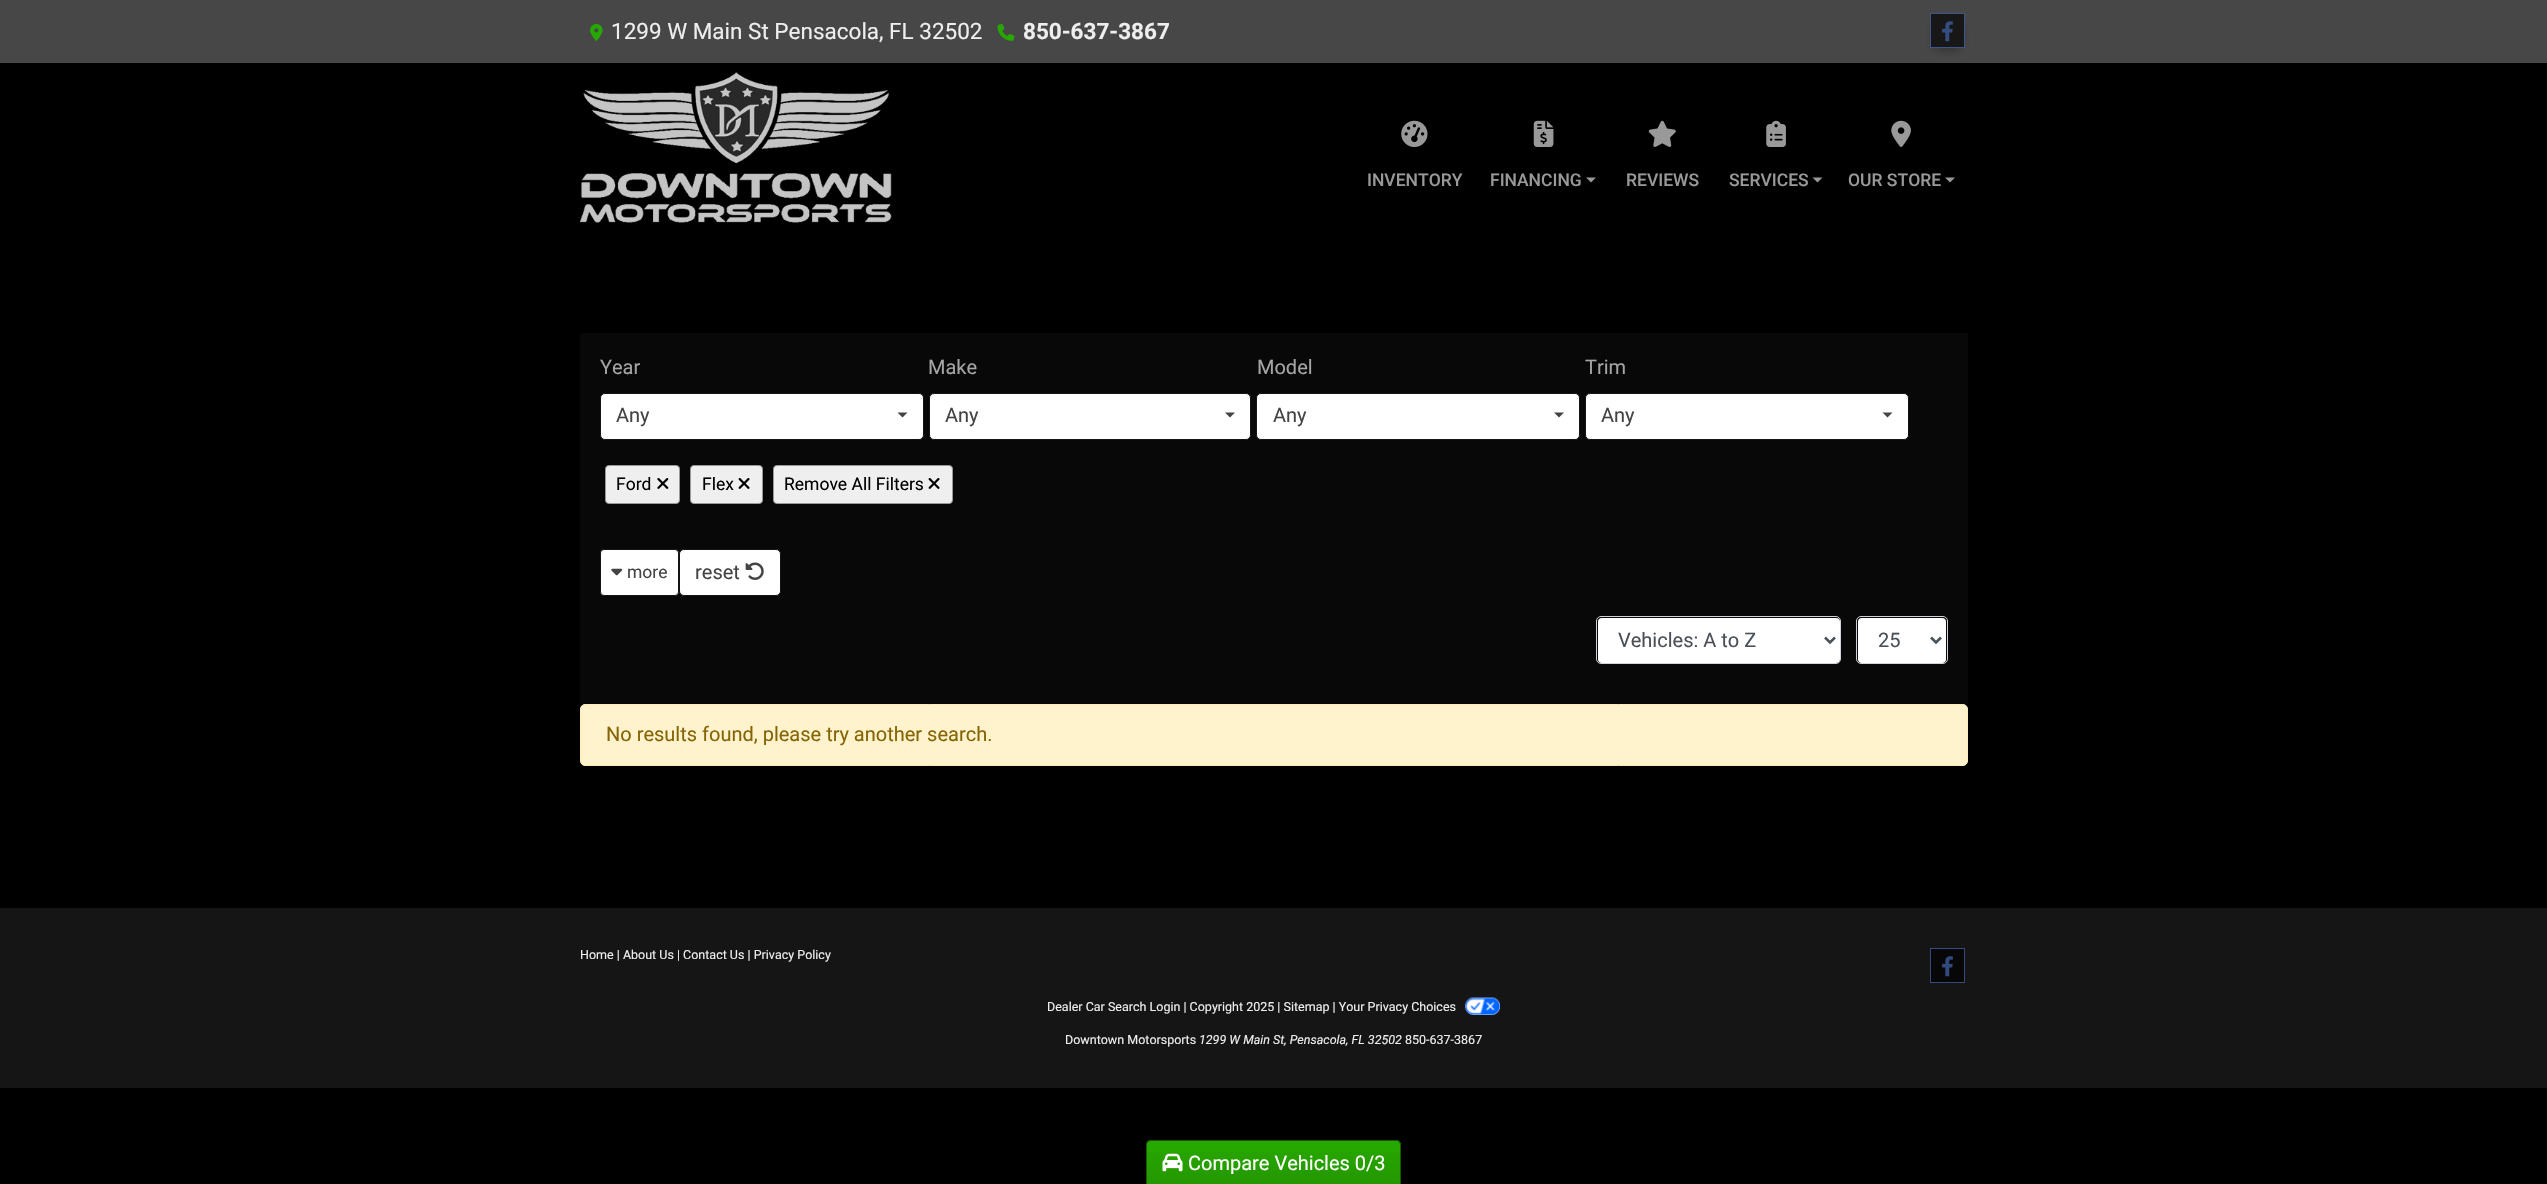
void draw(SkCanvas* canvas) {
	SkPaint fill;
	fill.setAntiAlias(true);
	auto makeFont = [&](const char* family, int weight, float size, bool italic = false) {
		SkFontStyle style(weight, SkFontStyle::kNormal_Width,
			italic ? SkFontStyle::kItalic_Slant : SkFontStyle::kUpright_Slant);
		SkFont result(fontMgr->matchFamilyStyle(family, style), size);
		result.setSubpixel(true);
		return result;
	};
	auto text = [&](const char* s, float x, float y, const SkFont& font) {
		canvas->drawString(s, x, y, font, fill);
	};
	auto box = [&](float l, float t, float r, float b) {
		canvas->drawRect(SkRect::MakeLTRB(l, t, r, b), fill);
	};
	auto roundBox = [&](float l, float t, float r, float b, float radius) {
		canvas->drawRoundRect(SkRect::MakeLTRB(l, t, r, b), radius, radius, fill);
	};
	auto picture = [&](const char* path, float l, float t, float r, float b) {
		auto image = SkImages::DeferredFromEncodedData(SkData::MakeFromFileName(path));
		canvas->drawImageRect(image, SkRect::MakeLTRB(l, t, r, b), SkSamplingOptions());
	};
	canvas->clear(0xFF000000);
	fill.setColor(0xFF474747);
	box(0, 0, 2547, 63);
	picture("image0.png", 590, 24, 603, 41);
	picture("image1.png", 997, 24, 1015, 41);
	canvas->save();
	canvas->clipPath(SkPathBuilder(SkPathFillType::kEvenOdd).moveTo(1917, 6).lineTo(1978, 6).lineTo(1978, 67).lineTo(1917, 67).close().moveTo(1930, 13).lineTo(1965, 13).lineTo(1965, 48).lineTo(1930, 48).close().detach(), true);
	fill.setColor(0x990E0E0E);
	fill.setMaskFilter(SkMaskFilter::MakeBlur(kNormal_SkBlurStyle, 6));
	canvas->drawRect(SkRect::MakeLTRB(1936, 25, 1959, 48), fill);
	fill.setMaskFilter(nullptr);
	canvas->restore();
	fill.setColor(0xD90E0E0E);
	canvas->drawRect(SkRect::MakeLTRB(1930.5f, 13.5f, 1964.5f, 47.5f), fill);
	fill.setStyle(SkPaint::kStroke_Style);
	fill.setStrokeWidth(1);
	fill.setColor(0xFF3D5588);
	canvas->drawRect(SkRect::MakeLTRB(1930.5f, 13.5f, 1964.5f, 47.5f), fill);
	picture("image2.png", 1942, 21, 1953, 42);
	picture("image3.png", 580, 72, 892, 223);
	picture("image4.png", 1401, 120, 1428, 147);
	picture("image5.png", 1533, 120, 1554, 147);
	fill.setStyle(SkPaint::kFill_Style);
	fill.setColor(0xFF999999);
	canvas->drawPath(SkPathBuilder().moveTo(1586, 177.5f).lineTo(1596, 177.5f).lineTo(1591, 182.5f).close().detach(), fill);
	picture("image6.png", 1648, 120, 1676, 147);
	picture("image7.png", 1766, 120, 1786, 147);
	canvas->drawPath(SkPathBuilder().moveTo(1812.5f, 177.5f).lineTo(1822.5f, 177.5f).lineTo(1817.5f, 182.5f).close().detach(), fill);
	picture("image8.png", 1891, 120, 1911, 147);
	canvas->drawPath(SkPathBuilder().moveTo(1945, 177.5f).lineTo(1955, 177.5f).lineTo(1950, 182.5f).close().detach(), fill);
	fill.setColor(0xFF080808);
	box(580, 333, 1968, 704);
	fill.setColor(0xFFFFFFFF);
	canvas->drawRoundRect(SkRect::MakeLTRB(600.5f, 393.5f, 923.5f, 439.5f), 4.5f, 4.5f, fill);
	fill.setStyle(SkPaint::kStroke_Style);
	fill.setColor(0xFF141414);
	canvas->drawRoundRect(SkRect::MakeLTRB(600.5f, 393.5f, 923.5f, 439.5f), 4.5f, 4.5f, fill);
	fill.setStyle(SkPaint::kFill_Style);
	fill.setColor(0xFF444444);
	canvas->drawPath(SkPathBuilder().moveTo(897.5f, 412.5f).lineTo(907.5f, 412.5f).lineTo(902.5f, 417.5f).close().detach(), fill);
	fill.setColor(0xFFFFFFFF);
	canvas->drawRoundRect(SkRect::MakeLTRB(929.5f, 393.5f, 1250.5f, 439.5f), 4.5f, 4.5f, fill);
	fill.setStyle(SkPaint::kStroke_Style);
	fill.setColor(0xFF141414);
	canvas->drawRoundRect(SkRect::MakeLTRB(929.5f, 393.5f, 1250.5f, 439.5f), 4.5f, 4.5f, fill);
	fill.setStyle(SkPaint::kFill_Style);
	fill.setColor(0xFF444444);
	canvas->drawPath(SkPathBuilder().moveTo(1225, 412.5f).lineTo(1235, 412.5f).lineTo(1230, 417.5f).close().detach(), fill);
	fill.setColor(0xFFFFFFFF);
	canvas->drawRoundRect(SkRect::MakeLTRB(1256.5f, 393.5f, 1579.5f, 439.5f), 4.5f, 4.5f, fill);
	fill.setStyle(SkPaint::kStroke_Style);
	fill.setColor(0xFF141414);
	canvas->drawRoundRect(SkRect::MakeLTRB(1256.5f, 393.5f, 1579.5f, 439.5f), 4.5f, 4.5f, fill);
	fill.setStyle(SkPaint::kFill_Style);
	fill.setColor(0xFF444444);
	canvas->drawPath(SkPathBuilder().moveTo(1554, 412.5f).lineTo(1564, 412.5f).lineTo(1559, 417.5f).close().detach(), fill);
	fill.setColor(0xFFFFFFFF);
	canvas->drawRoundRect(SkRect::MakeLTRB(1585.5f, 393.5f, 1908.5f, 439.5f), 4.5f, 4.5f, fill);
	fill.setStyle(SkPaint::kStroke_Style);
	fill.setColor(0xFF141414);
	canvas->drawRoundRect(SkRect::MakeLTRB(1585.5f, 393.5f, 1908.5f, 439.5f), 4.5f, 4.5f, fill);
	fill.setStyle(SkPaint::kFill_Style);
	fill.setColor(0xFF444444);
	canvas->drawPath(SkPathBuilder().moveTo(1882.5f, 412.5f).lineTo(1892.5f, 412.5f).lineTo(1887.5f, 417.5f).close().detach(), fill);
	fill.setColor(0xFFEFEFEF);
	canvas->drawRoundRect(SkRect::MakeLTRB(605.5f, 465.5f, 679.5f, 503.5f), 3.5f, 3.5f, fill);
	fill.setStyle(SkPaint::kStroke_Style);
	fill.setColor(0xFF999999);
	canvas->drawRoundRect(SkRect::MakeLTRB(605.5f, 465.5f, 679.5f, 503.5f), 3.5f, 3.5f, fill);
	picture("image9.png", 657, 478, 669, 489);
	fill.setStyle(SkPaint::kFill_Style);
	fill.setColor(0xFFEFEFEF);
	canvas->drawRoundRect(SkRect::MakeLTRB(690.5f, 465.5f, 762.5f, 503.5f), 3.5f, 3.5f, fill);
	fill.setStyle(SkPaint::kStroke_Style);
	fill.setColor(0xFF999999);
	canvas->drawRoundRect(SkRect::MakeLTRB(690.5f, 465.5f, 762.5f, 503.5f), 3.5f, 3.5f, fill);
	picture("image10.png", 738, 478, 750, 489);
	fill.setStyle(SkPaint::kFill_Style);
	fill.setColor(0xFFEFEFEF);
	canvas->drawRoundRect(SkRect::MakeLTRB(773.5f, 465.5f, 952.5f, 503.5f), 3.5f, 3.5f, fill);
	fill.setStyle(SkPaint::kStroke_Style);
	fill.setColor(0xFF999999);
	canvas->drawRoundRect(SkRect::MakeLTRB(773.5f, 465.5f, 952.5f, 503.5f), 3.5f, 3.5f, fill);
	picture("image10.png", 928, 478, 940, 489);
	fill.setStyle(SkPaint::kFill_Style);
	fill.setColor(0xFFFFFFFF);
	canvas->drawRoundRect(SkRect::MakeLTRB(600.5f, 549.5f, 678.5f, 595.5f), 3.5f, 3.5f, fill);
	fill.setStyle(SkPaint::kStroke_Style);
	fill.setColor(0xFF141414);
	canvas->drawRoundRect(SkRect::MakeLTRB(600.5f, 549.5f, 678.5f, 595.5f), 3.5f, 3.5f, fill);
	picture("image11.png", 611, 568, 623, 576);
	fill.setStyle(SkPaint::kFill_Style);
	fill.setColor(0xFFFFFFFF);
	canvas->drawRoundRect(SkRect::MakeLTRB(679.5f, 549.5f, 780.5f, 595.5f), 4.5f, 4.5f, fill);
	fill.setStyle(SkPaint::kStroke_Style);
	fill.setColor(0xFF141414);
	canvas->drawRoundRect(SkRect::MakeLTRB(679.5f, 549.5f, 780.5f, 595.5f), 4.5f, 4.5f, fill);
	picture("image12.png", 745, 562, 764, 580);
	fill.setStyle(SkPaint::kFill_Style);
	fill.setColor(0xFFFFFFFF);
	roundBox(1598, 618, 1840, 663, 4);
	fill.setStyle(SkPaint::kStroke_Style);
	fill.setColor(0xFFCED4DA);
	canvas->drawRoundRect(SkRect::MakeLTRB(1596.5f, 616.5f, 1840.5f, 663.5f), 4.5f, 4.5f, fill);
	fill.setStrokeWidth(2.5f);
	fill.setColor(0xFF495057);
	canvas->drawPath(SkPathBuilder().moveTo(1825, 637.5f).lineTo(1830, 642.5f).lineTo(1835, 637.5f).detach(), fill);
	fill.setStyle(SkPaint::kFill_Style);
	fill.setColor(0xFFFFFFFF);
	roundBox(1858, 618, 1946, 663, 4);
	fill.setStyle(SkPaint::kStroke_Style);
	fill.setStrokeWidth(1);
	fill.setColor(0xFFCED4DA);
	canvas->drawRoundRect(SkRect::MakeLTRB(1856.5f, 616.5f, 1947.5f, 663.5f), 4.5f, 4.5f, fill);
	fill.setStrokeWidth(2.5f);
	fill.setColor(0xFF495057);
	canvas->drawPath(SkPathBuilder().moveTo(1931, 637.5f).lineTo(1936, 642.5f).lineTo(1941, 637.5f).detach(), fill);
	fill.setStyle(SkPaint::kFill_Style);
	fill.setColor(0xFFFFF3CD);
	canvas->drawRoundRect(SkRect::MakeLTRB(580.5f, 704.5f, 1967.5f, 765.5f), 4.5f, 4.5f, fill);
	fill.setStyle(SkPaint::kStroke_Style);
	fill.setStrokeWidth(1);
	fill.setColor(0xFFFFEEBA);
	canvas->drawRoundRect(SkRect::MakeLTRB(580.5f, 704.5f, 1967.5f, 765.5f), 4.5f, 4.5f, fill);
	fill.setStyle(SkPaint::kFill_Style);
	fill.setColor(0xFF27A800);
	roundBox(1146, 1140, 1401, 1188, 5);
	{
		const SkColor colors[] = {0x00000000, 0x1A000000};
		const float stops[] = {0, 1};
		const SkPoint ends[] = {{1274, 1141}, {1274, 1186}};
		fill.setShader(SkGradientShader::MakeLinear(ends, colors, stops, 2, SkTileMode::kClamp));
		fill.setAlpha(255);
	}
	box(1146, 1151, 1401, 1184);
	fill.setStyle(SkPaint::kStroke_Style);
	fill.setShader(nullptr);
	fill.setColor(0xFF155C00);
	canvas->drawRoundRect(SkRect::MakeLTRB(1146.5f, 1140.5f, 1400.5f, 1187.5f), 4.5f, 4.5f, fill);
	picture("image13.png", 1162, 1153, 1183, 1172);
	fill.setStyle(SkPaint::kFill_Style);
	fill.setColor(0xFF151515);
	box(0, 908, 2547, 1088);
	fill.setColor(0xD9040404);
	canvas->drawRect(SkRect::MakeLTRB(1930.5f, 948.5f, 1964.5f, 982.5f), fill);
	fill.setStyle(SkPaint::kStroke_Style);
	fill.setColor(0xFF334B7E);
	canvas->drawRect(SkRect::MakeLTRB(1930.5f, 948.5f, 1964.5f, 982.5f), fill);
	picture("image14.png", 1942, 956, 1953, 977);
	picture("image15.png", 1465, 997, 1500, 1015);
	auto font1 = makeFont("Roboto", 400, 22.5f);
	fill.setStyle(SkPaint::kFill_Style);
	fill.setColor(0xFFEEEEEE);
	text("1299 W Main St Pensacola, FL 32502", 611, 39, font1);
	auto font2 = makeFont("Roboto", 700, 22.5f);
	text("850-637-3867", 1023, 39, font2);
	auto font3 = makeFont("Roboto", 500, 17.5f);
	fill.setColor(0xFF999999);
	text("INVENTORY", 1367, 186, font3);
	text("FINANCING", 1490, 186, font3);
	text("REVIEWS", 1626, 186, font3);
	text("SERVICES", 1729, 186, font3);
	text("OUR STORE", 1848, 186, font3);
	auto font4 = makeFont("Roboto", 400, 20);
	fill.setColor(0xFFA5A5A5);
	text("Year", 600, 374, font4);
	fill.setColor(0xFF444444);
	text("Any", 616, 422, font4);
	fill.setColor(0xFFA5A5A5);
	text("Make", 928, 374, font4);
	fill.setColor(0xFF444444);
	text("Any", 945, 422, font4);
	fill.setColor(0xFFA5A5A5);
	text("Model", 1257, 374, font4);
	fill.setColor(0xFF444444);
	text("Any", 1273, 422, font4);
	fill.setColor(0xFFA5A5A5);
	text("Trim", 1585, 374, font4);
	fill.setColor(0xFF444444);
	text("Any", 1601, 422, font4);
	auto font5 = makeFont("Roboto", 400, 17.5f);
	fill.setColor(0xFF000000);
	text("Ford", 616, 490, font5);
	text("Flex", 702, 490, font5);
	text("Remove All Filters", 784, 490, font5);
	fill.setColor(0xFF444444);
	text("more", 627, 578, font5);
	text("reset", 695, 579, font4);
	fill.setColor(0xFF495057);
	text("Vehicles: A to Z", 1618, 647, font4);
	text("25", 1878, 647, font4);
	fill.setColor(0xFF856404);
	text("No results found, please try another search.", 606, 741, font4);
	fill.setColor(0xFFFFFFFF);
	text("Compare Vehicles 0/3", 1188, 1170, font4);
	auto font6 = makeFont("Roboto", 400, 12.5f);
	fill.setColor(0xFFEEEEEE);
	text("Home | About Us | Contact Us | Privacy Policy", 580, 959, font6);
	text("Dealer Car Search Login | Copyright 2025 | Sitemap | Your Privacy Choices", 1047, 1011, font6);
	text("Downtown Motorsports", 1065, 1044, font6);
	auto font7 = makeFont("Roboto", 400, 12.5f, true);
	text("1299 W Main St, Pensacola, FL 32502", 1199, 1044, font7);
	text("850-637-3867", 1405, 1044, font6);
}
